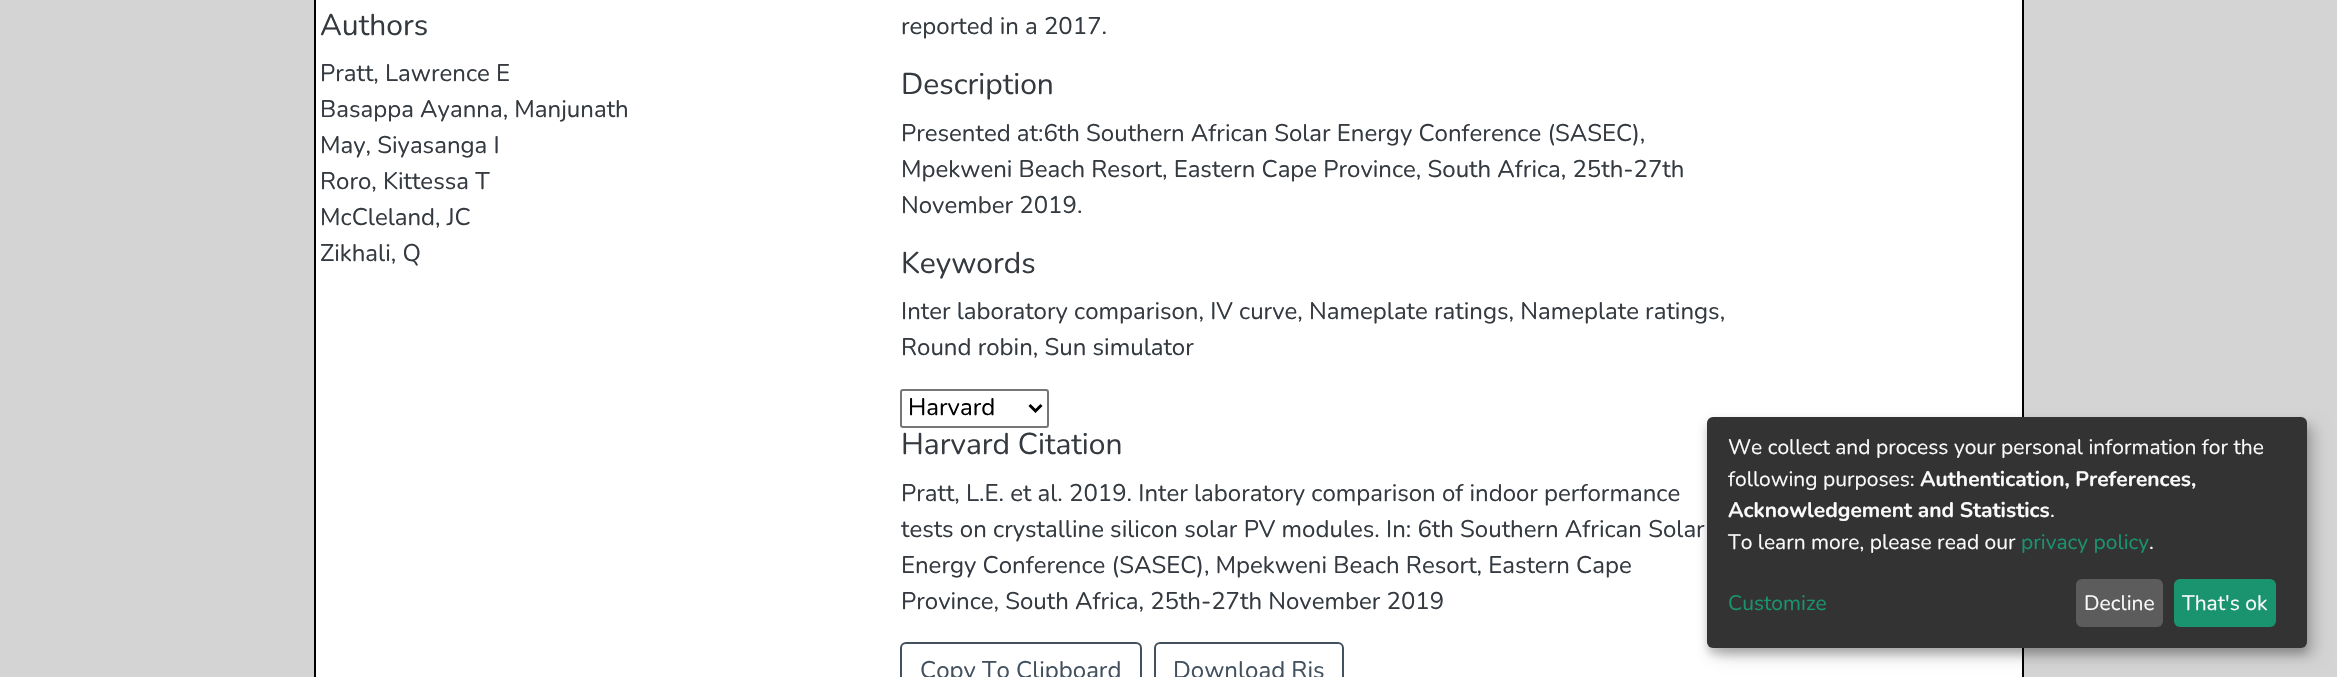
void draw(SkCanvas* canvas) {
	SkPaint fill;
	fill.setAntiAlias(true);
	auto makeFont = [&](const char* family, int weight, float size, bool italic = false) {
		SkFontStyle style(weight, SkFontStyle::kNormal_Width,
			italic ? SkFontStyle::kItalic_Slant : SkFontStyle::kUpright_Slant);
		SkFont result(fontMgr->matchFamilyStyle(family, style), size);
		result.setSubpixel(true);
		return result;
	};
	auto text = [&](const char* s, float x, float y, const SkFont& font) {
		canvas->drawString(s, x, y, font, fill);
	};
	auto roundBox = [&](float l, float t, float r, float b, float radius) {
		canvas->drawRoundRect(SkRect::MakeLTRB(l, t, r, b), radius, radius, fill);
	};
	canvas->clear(0xFFD4D4D4);
	fill.setColor(0xFFFFFFFF);
	canvas->drawRect(SkRect::MakeLTRB(315, -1, 2023, 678), fill);
	fill.setStyle(SkPaint::kStroke_Style);
	fill.setStrokeWidth(2);
	fill.setColor(0xFF000000);
	canvas->drawRect(SkRect::MakeLTRB(315, -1, 2023, 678), fill);
	fill.setColor(0xFF767676);
	canvas->drawRoundRect(SkRect::MakeLTRB(901, 390, 1048, 427), 2, 2, fill);
	fill.setStrokeWidth(3);
	fill.setColor(0xFF000000);
	canvas->drawPath(SkPathBuilder().moveTo(1029.5f, 405).lineTo(1035.5f, 411).lineTo(1041.5f, 405).detach(), fill);
	fill.setStrokeWidth(2);
	fill.setColor(0xFF43515F);
	canvas->drawRoundRect(SkRect::MakeLTRB(901, 643, 1141, 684), 5, 5, fill);
	canvas->drawRoundRect(SkRect::MakeLTRB(1155, 643, 1343, 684), 5, 5, fill);
	fill.setStyle(SkPaint::kFill_Style);
	fill.setColor(0x30000000);
	fill.setMaskFilter(SkMaskFilter::MakeBlur(kNormal_SkBlurStyle, 7.5f));
	canvas->drawRoundRect(SkRect::MakeLTRB(1715, 425, 2315, 656), 6, 6, fill);
	fill.setMaskFilter(nullptr);
	fill.setColor(0x33000000);
	fill.setMaskFilter(SkMaskFilter::MakeBlur(kNormal_SkBlurStyle, 4.5f));
	canvas->drawRoundRect(SkRect::MakeLTRB(1707, 423, 2307, 654), 6, 6, fill);
	fill.setMaskFilter(nullptr);
	fill.setColor(0xFF333333);
	roundBox(1707, 417, 2307, 648, 6);
	fill.setColor(0xFF5C5C5C);
	roundBox(2076, 579, 2163, 627, 6);
	fill.setColor(0xFF1A936F);
	roundBox(2174, 579, 2276, 627, 6);
	auto font1 = makeFont("Nunito", 400, 30);
	fill.setColor(0xFF343A40);
	text("Authors", 320, 35, font1);
	auto font2 = makeFont("Nunito", 400, 24);
	text("Pratt, Lawrence E", 320, 81, font2);
	text("Basappa Ayanna, Manjunath", 320, 117, font2);
	text("May, Siyasanga I", 320, 153, font2);
	text("Roro, Kittessa T", 320, 189, font2);
	text("McCleland, JC", 320, 225, font2);
	text("Zikhali, Q", 320, 261, font2);
	text("reported in a 2017.", 901, 34, font2);
	text("Description", 901, 94, font1);
	text("Presented at:6th Southern African Solar Energy Conference (SASEC),", 901, 141, font2);
	text("Mpekweni Beach Resort, Eastern Cape Province, South Africa, 25th-27th", 901, 177, font2);
	text("November 2019.", 901, 213, font2);
	text("Keywords", 901, 273, font1);
	text("Inter laboratory comparison, IV curve, Nameplate ratings, Nameplate ratings,", 901, 319, font2);
	text("Round robin, Sun simulator", 901, 355, font2);
	fill.setColor(0xFF000000);
	text("Harvard", 908, 415, font2);
	fill.setColor(0xFF343A40);
	text("Harvard Citation", 901, 454, font1);
	text("Pratt, L.E. et al. 2019. Inter laboratory comparison of indoor performance", 901, 501, font2);
	text("tests on crystalline silicon solar PV modules. In: 6th Southern African Solar", 901, 537, font2);
	text("Energy Conference (SASEC), Mpekweni Beach Resort, Eastern Cape", 901, 573, font2);
	text("Province, South Africa, 25th-27th November 2019", 901, 609, font2);
	fill.setColor(0xFF43515F);
	text("Copy To Clipboard", 920, 678, font2);
	text("Download Ris", 1173, 678, font2);
	auto font3 = makeFont("Nunito", 400, 21);
	fill.setColor(0xFFFAFAFA);
	text("We collect and process your personal information for the", 1728, 454, font3);
	text("following purposes:", 1728, 486, font3);
	auto font4 = makeFont("Nunito", 700, 21);
	text("Authentication, Preferences,", 1920, 486, font4);
	text("Acknowledgement and Statistics", 1728, 517, font4);
	text(".", 2050, 517, font3);
	text("To learn more, please read our", 1728, 549, font3);
	fill.setColor(0xFF1A936F);
	text("privacy policy", 2021, 549, font3);
	fill.setColor(0xFFFAFAFA);
	text(".", 2149, 549, font3);
	fill.setColor(0xFF1A936F);
	text("Customize", 1728, 610, font3);
	fill.setColor(0xFFFAFAFA);
	text("Decline", 2084, 610, font3);
	text("That's ok", 2182, 610, font3);
}
